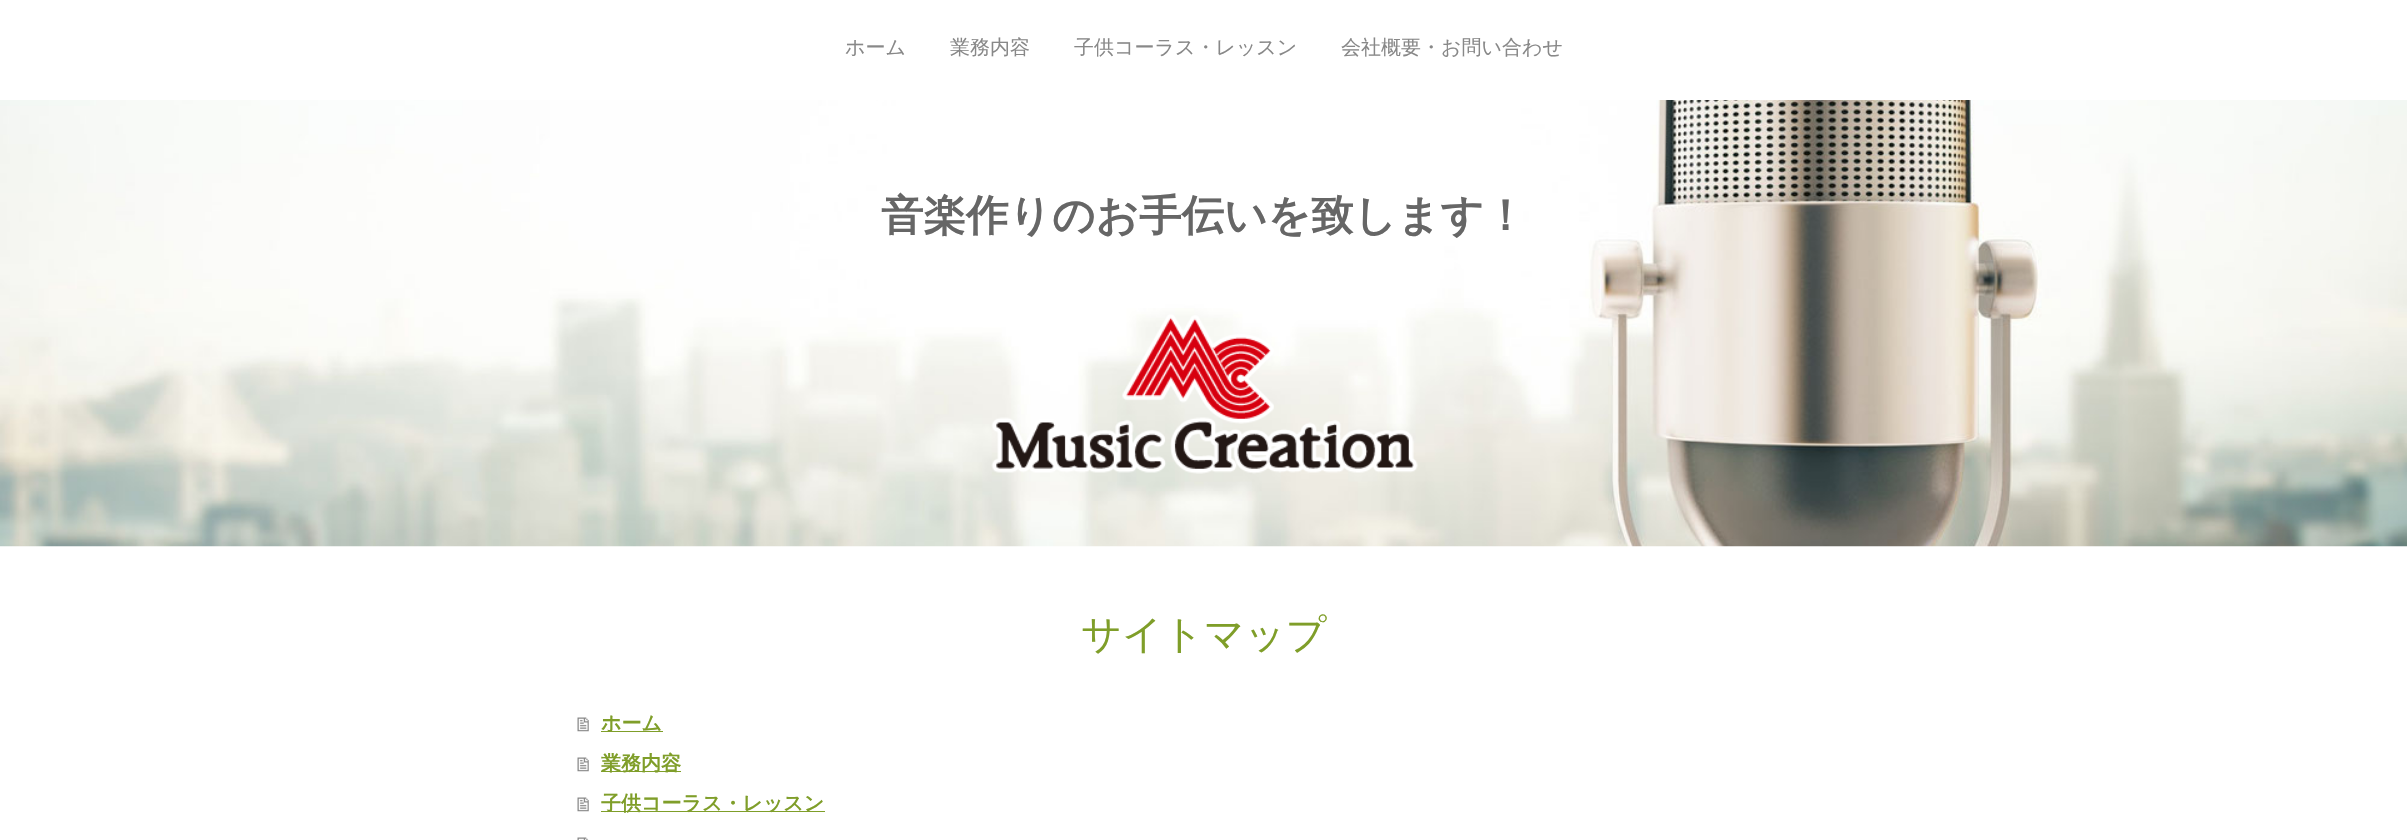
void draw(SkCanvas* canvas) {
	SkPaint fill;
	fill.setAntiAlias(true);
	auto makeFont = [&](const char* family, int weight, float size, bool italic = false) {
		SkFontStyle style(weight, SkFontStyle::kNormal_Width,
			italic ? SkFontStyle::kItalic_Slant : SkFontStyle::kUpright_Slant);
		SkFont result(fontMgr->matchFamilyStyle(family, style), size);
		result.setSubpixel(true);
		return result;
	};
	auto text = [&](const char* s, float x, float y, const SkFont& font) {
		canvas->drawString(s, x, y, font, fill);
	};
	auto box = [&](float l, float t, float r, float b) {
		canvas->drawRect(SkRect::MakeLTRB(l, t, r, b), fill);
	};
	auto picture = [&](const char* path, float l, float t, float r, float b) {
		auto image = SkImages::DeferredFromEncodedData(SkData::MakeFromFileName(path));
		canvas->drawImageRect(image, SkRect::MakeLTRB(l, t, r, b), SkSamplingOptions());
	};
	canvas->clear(0xFFFFFFFF);
	picture("image0.png", 0, 100, 2407, 547);
	picture("image1.png", 991, 314, 1418, 474);
	picture("image2.png", 577, 717, 589, 732);
	fill.setColor(0xFF7F9E29);
	box(601, 731, 663, 732);
	picture("image2.png", 577, 757, 589, 772);
	box(601, 771, 681, 772);
	picture("image2.png", 577, 797, 589, 812);
	box(601, 811, 825, 812);
	picture("image3.png", 577, 837, 589, 840);
	auto font1 = makeFont("WenQuanYi Zen Hei", 500, 20);
	fill.setColor(0xFF888888);
	text("ホーム", 845, 54, font1);
	text("業務内容", 950, 54, font1);
	text("子供コーラス・レッスン", 1074, 54, font1);
	text("会社概要・お問い合わせ", 1341, 54, font1);
	auto font2 = makeFont("WenQuanYi Zen Hei", 700, 42.5f);
	fill.setColor(0xFF666666);
	text("音楽作りのお手伝いを致します！", 881, 230, font2);
	auto font3 = makeFont("WenQuanYi Zen Hei", 500, 40);
	fill.setColor(0xFF7F9E29);
	text("サイトマップ", 1081, 648, font3);
	auto font4 = makeFont("WenQuanYi Zen Hei", 700, 20);
	text("ホーム", 601, 730, font4);
	text("業務内容", 601, 770, font4);
	text("子供コーラス・レッスン", 601, 810, font4);
}
